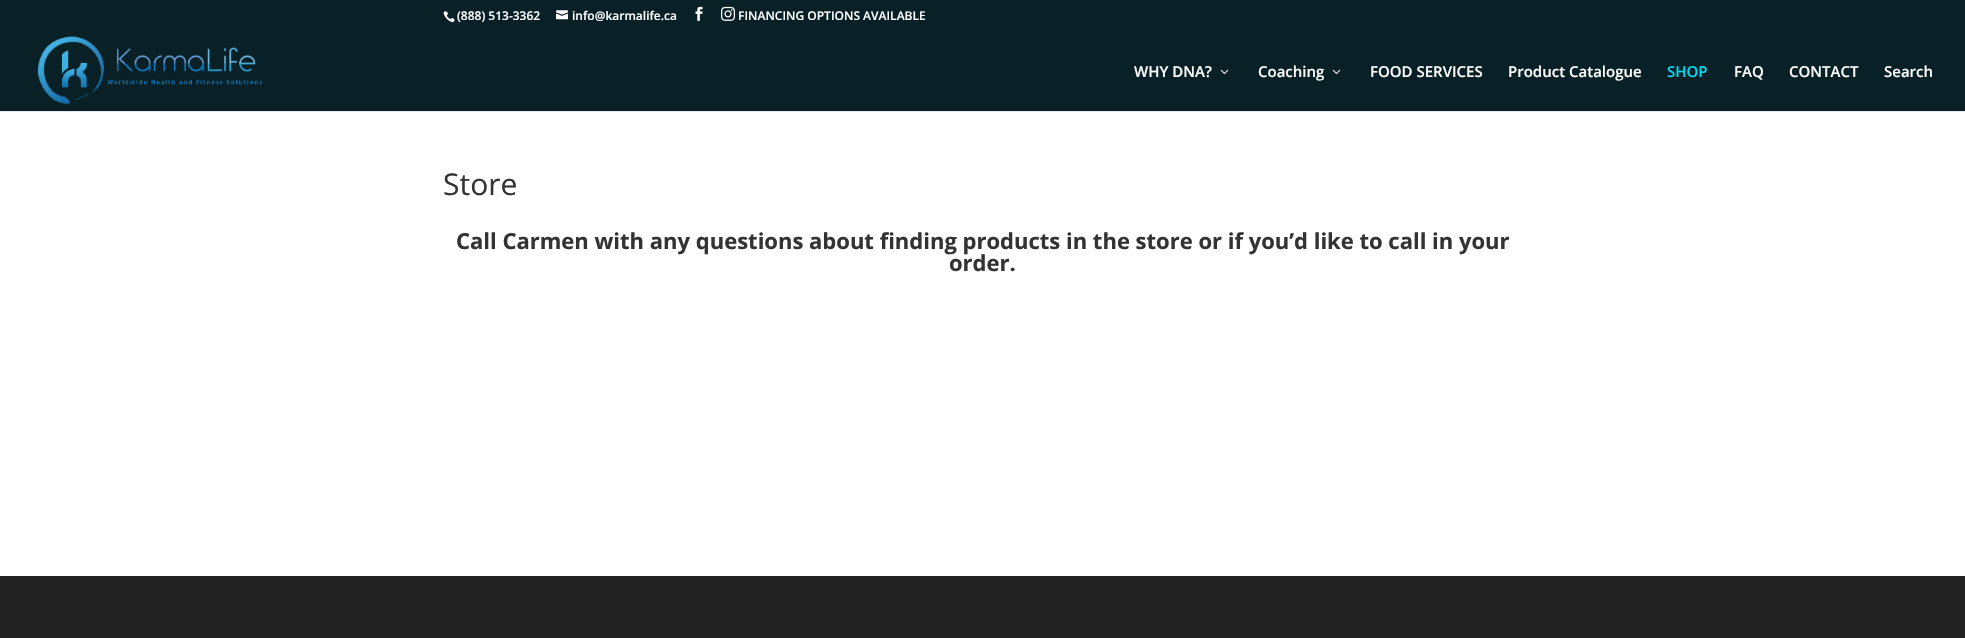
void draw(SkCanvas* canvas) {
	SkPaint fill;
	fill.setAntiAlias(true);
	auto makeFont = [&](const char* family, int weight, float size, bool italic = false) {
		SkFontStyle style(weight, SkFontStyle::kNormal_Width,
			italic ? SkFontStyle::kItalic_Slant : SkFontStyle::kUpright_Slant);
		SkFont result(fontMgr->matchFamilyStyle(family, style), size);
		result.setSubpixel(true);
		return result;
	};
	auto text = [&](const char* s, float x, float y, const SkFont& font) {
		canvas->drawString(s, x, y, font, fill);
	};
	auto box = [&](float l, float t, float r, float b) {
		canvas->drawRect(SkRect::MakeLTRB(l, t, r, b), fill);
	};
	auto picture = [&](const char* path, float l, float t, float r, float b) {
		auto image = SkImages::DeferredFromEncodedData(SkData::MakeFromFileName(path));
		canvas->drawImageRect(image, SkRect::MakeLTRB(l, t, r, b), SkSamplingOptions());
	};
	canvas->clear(0xFFFFFFFF);
	fill.setColor(0xFF092126);
	box(0, 0, 1965, 111);
	picture("image0.png", 443, 11, 455, 23);
	picture("image1.png", 556, 10, 568, 20);
	picture("image2.png", 695, 6, 703, 21);
	picture("image3.png", 721, 6, 735, 21);
	fill.setColor(0xFFE6E6E6);
	box(0, 111, 1965, 112);
	picture("image4.png", 37, 36, 262, 105);
	picture("image5.png", 1220, 69, 1229, 74);
	picture("image5.png", 1332, 69, 1341, 74);
	fill.setColor(0xFF222222);
	box(0, 576, 1965, 638);
	auto font1 = makeFont("Open Sans", 600, 12);
	fill.setColor(0xFFFFFFFF);
	text("(888) 513-3362", 457, 20, font1);
	text("info@karmalife.ca", 572, 20, font1);
	text("FINANCING OPTIONS AVAILABLE", 738, 20, font1);
	auto font2 = makeFont("Open Sans", 600, 15);
	text("WHY DNA?", 1134, 77, font2);
	text("Coaching", 1258, 77, font2);
	text("FOOD SERVICES", 1370, 77, font2);
	text("Product Catalogue", 1508, 77, font2);
	fill.setColor(0xFF00DBF2);
	text("SHOP", 1667, 77, font2);
	fill.setColor(0xFFFFFFFF);
	text("FAQ", 1734, 77, font2);
	text("CONTACT", 1789, 77, font2);
	text("Search", 1884, 77, font2);
	auto font3 = makeFont("Open Sans", 400, 30);
	fill.setColor(0xFF333333);
	text("Store", 443, 195, font3);
	auto font4 = makeFont("Open Sans", 700, 22);
	text("Call Carmen with any questions about finding products in the store or if you’d like to call in your", 456, 249, font4);
	text("order.", 949, 271, font4);
}
